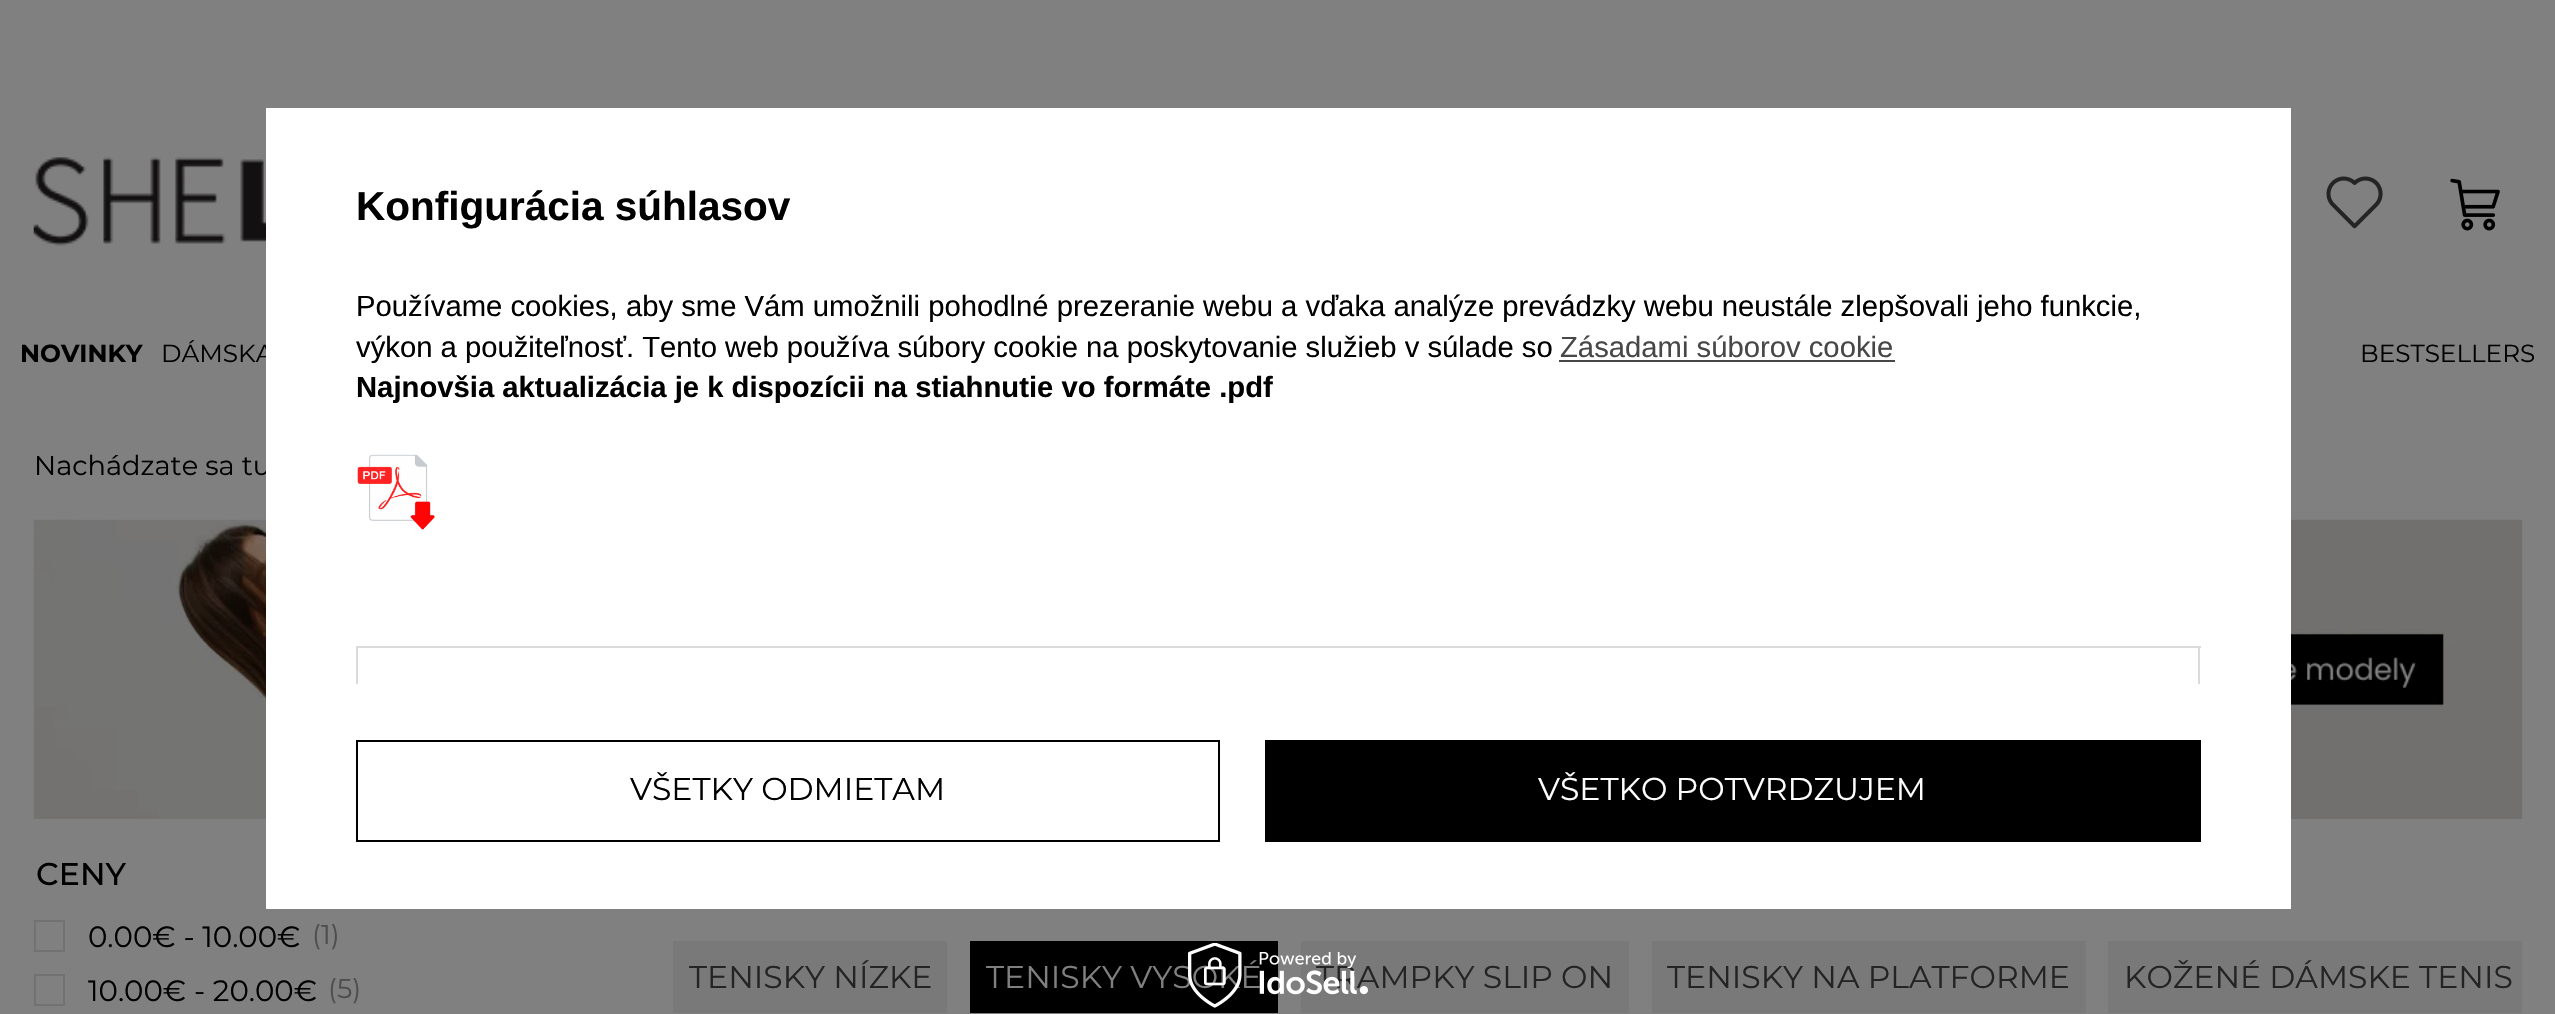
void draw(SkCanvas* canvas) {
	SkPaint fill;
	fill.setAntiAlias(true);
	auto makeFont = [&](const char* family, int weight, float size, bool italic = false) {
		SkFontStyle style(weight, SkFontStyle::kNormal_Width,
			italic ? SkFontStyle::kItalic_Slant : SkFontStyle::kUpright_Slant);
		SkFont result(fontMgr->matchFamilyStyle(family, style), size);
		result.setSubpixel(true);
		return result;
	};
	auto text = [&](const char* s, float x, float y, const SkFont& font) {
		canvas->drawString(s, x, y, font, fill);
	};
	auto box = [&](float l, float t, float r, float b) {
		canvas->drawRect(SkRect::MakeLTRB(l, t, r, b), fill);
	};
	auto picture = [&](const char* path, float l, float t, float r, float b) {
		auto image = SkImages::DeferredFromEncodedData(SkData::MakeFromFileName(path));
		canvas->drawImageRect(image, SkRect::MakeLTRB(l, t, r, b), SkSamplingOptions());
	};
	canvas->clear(0xFF808080);
	picture("image2.png", 33, 157, 266, 258);
	picture("image3.png", 2326, 176, 2383, 229);
	picture("image4.png", 2450, 178, 2500, 231);
	picture("image5.png", 33, 519, 2523, 819);
	fill.setStyle(SkPaint::kStroke_Style);
	fill.setStrokeWidth(2);
	fill.setColor(0xFF727272);
	canvas->drawRect(SkRect::MakeLTRB(35, 921, 64, 951), fill);
	canvas->drawRect(SkRect::MakeLTRB(35, 975, 64, 1005), fill);
	fill.setStyle(SkPaint::kFill_Style);
	fill.setColor(0xFF797979);
	box(673, 941, 947, 1013);
	fill.setColor(0xFF000000);
	box(970, 941, 1278, 1013);
	fill.setColor(0xFF797979);
	box(1301, 941, 1629, 1013);
	box(1652, 941, 2086, 1013);
	box(2108, 941, 2522, 1013);
	auto font1 = makeFont("Montserrat", 700, 24.75f);
	fill.setColor(0xFF000000);
	text("NOVINKY", 20, 362, font1);
	auto font2 = makeFont("Montserrat", 400, 24.75f);
	text("DÁMSKA", 161, 362, font2);
	text("BESTSELLERS", 2360, 362, font2);
	auto font3 = makeFont("Montserrat", 400, 27.25f);
	text("Nachádzate sa tu", 34, 475, font3);
	fill.setColor(0xFFFFFFFF);
	box(266, 108, 2291, 909);
	picture("image0.png", 357, 454, 435, 530);
	auto font4 = makeFont("Liberation Sans", 700, 29.25f);
	fill.setColor(0xFF000000);
	text("Najnovšia aktualizácia je k dispozícii na stiahnutie vo formáte .pdf", 356, 397, font4);
	auto font5 = makeFont("Liberation Sans", 400, 29.25f);
	fill.setColor(0xFF474747);
	text("Zásadami súborov cookie", 1560, 357, font5);
	box(1559, 360, 1895, 362);
	fill.setColor(0xFF000000);
	text("výkon a použiteľnosť. Tento web používa súbory cookie na poskytovanie služieb v súlade so", 356, 357, font5);
	text("Používame cookies, aby sme Vám umožnili pohodlné prezeranie webu a vďaka analýze prevádzky webu neustále zlepšovali jeho funkcie,", 356, 316, font5);
	auto font6 = makeFont("Liberation Sans", 700, 40.5f);
	text("Konfigurácia súhlasov", 356, 220, font6);
	fill.setColor(0xFFDBDBDB);
	box(356, 646, 2201, 648);
	box(356, 646, 358, 684);
	box(2198, 646, 2200, 684);
	fill.setColor(0xFF000000);
	box(1265, 740, 2201, 842);
	auto font7 = makeFont("Montserrat", 400, 31.5f);
	fill.setColor(0xFFFFFFFF);
	text("VŠETKO POTVRDZUJEM", 1538, 800, font7);
	fill.setStyle(SkPaint::kStroke_Style);
	fill.setColor(0xFF000000);
	canvas->drawRect(SkRect::MakeLTRB(357, 741, 1219, 841), fill);
	fill.setStyle(SkPaint::kFill_Style);
	text("VŠETKY ODMIETAM", 630, 800, font7);
	auto font8 = makeFont("Montserrat", 500, 31.5f);
	text("CENY", 36, 885, font8);
	auto font9 = makeFont("Montserrat", 400, 29.25f);
	text("0.00€ - 10.00€", 88, 947, font9);
	auto font10 = makeFont("Montserrat", 400, 27);
	fill.setColor(0xFF4D4D4D);
	text("(1)", 312, 944, font10);
	fill.setColor(0xFF000000);
	text("10.00€ - 20.00€", 88, 1001, font9);
	fill.setColor(0xFF4D4D4D);
	text("(5)", 328, 998, font10);
	fill.setColor(0xFF242424);
	text("TENISKY NÍZKE", 689, 988, font7);
	fill.setColor(0xFF808080);
	text("TENISKY VYSOKÉ", 986, 988, font7);
	fill.setColor(0xFF242424);
	text("TRAMPKY SLIP ON", 1316, 988, font7);
	picture("image1.png", 1188, 943, 1368, 1008);
	text("TENISKY NA PLATFORME", 1667, 988, font7);
	text("KOŽENÉ DÁMSKE TENIS", 2124, 988, font7);
}
